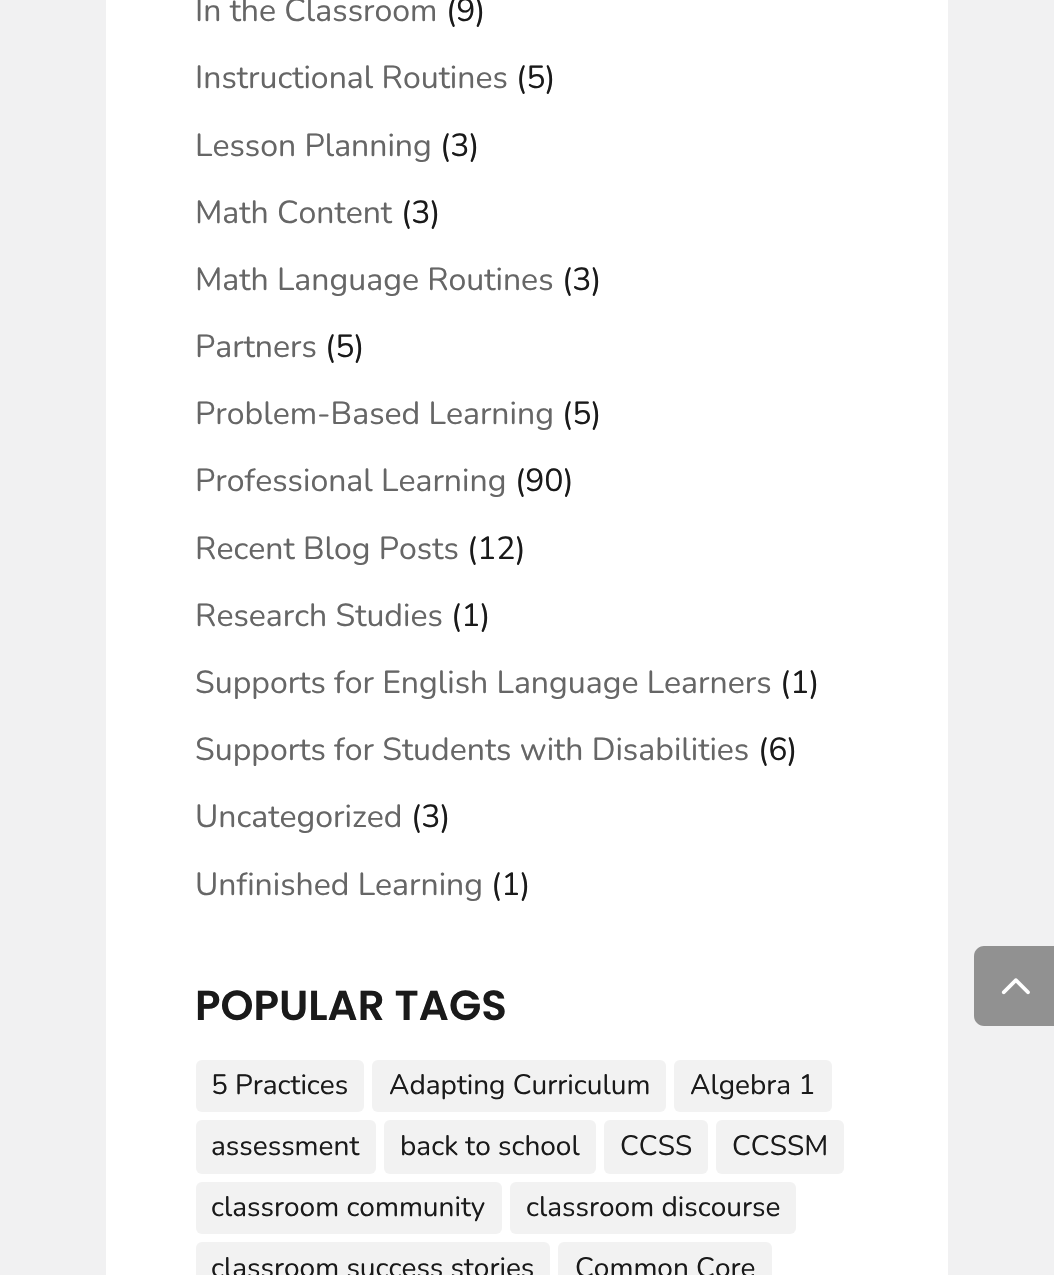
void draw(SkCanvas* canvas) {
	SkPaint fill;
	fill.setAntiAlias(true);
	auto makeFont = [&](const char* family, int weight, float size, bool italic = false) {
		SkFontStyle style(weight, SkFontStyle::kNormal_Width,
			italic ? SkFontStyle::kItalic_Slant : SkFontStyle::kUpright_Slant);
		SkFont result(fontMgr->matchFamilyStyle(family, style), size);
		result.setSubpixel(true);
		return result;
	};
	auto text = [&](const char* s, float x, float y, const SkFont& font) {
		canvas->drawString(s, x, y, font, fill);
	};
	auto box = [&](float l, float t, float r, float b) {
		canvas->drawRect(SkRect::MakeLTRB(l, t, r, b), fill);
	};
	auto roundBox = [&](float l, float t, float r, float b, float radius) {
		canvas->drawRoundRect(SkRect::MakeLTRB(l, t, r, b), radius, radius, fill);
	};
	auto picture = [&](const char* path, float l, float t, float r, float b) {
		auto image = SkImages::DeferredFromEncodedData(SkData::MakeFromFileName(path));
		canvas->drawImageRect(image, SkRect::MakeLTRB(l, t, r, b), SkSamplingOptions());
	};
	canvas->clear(0xFFF1F1F2);
	fill.setColor(0xFFFFFFFF);
	box(106, 0, 948, 1275);
	fill.setColor(0xFFF2F2F2);
	roundBox(196, 1060, 364, 1112, 6);
	roundBox(372, 1060, 666, 1112, 6);
	roundBox(674, 1060, 832, 1112, 6);
	roundBox(196, 1120, 376, 1174, 6);
	roundBox(384, 1120, 596, 1174, 6);
	roundBox(604, 1120, 708, 1174, 6);
	roundBox(716, 1120, 844, 1174, 6);
	roundBox(196, 1182, 502, 1234, 6);
	roundBox(510, 1182, 796, 1234, 6);
	roundBox(196, 1242, 550, 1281, 6);
	roundBox(558, 1242, 772, 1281, 6);
	fill.setColor(0xFF919191);
	canvas->drawPath(SkPathBuilder().moveTo(984, 946).lineTo(1054, 946).lineTo(1054, 1026).lineTo(984, 1026).cubicTo(978.5f, 1026, 974, 1021.5f, 974, 1016).lineTo(974, 956).cubicTo(974, 950.5f, 978.5f, 946, 984, 946).close().detach(), fill);
	picture("image0.png", 1001, 978, 1030, 995);
	auto font1 = makeFont("Nunito", 400, 32);
	fill.setColor(0xFF666666);
	text("In the Classroom", 195, 21, font1);
	fill.setColor(0xFF1A1A1A);
	text("(9)", 446, 21, font1);
	fill.setColor(0xFF666666);
	text("Instructional Routines", 195, 88, font1);
	fill.setColor(0xFF1A1A1A);
	text("(5)", 516, 88, font1);
	fill.setColor(0xFF666666);
	text("Lesson Planning", 195, 156, font1);
	fill.setColor(0xFF1A1A1A);
	text("(3)", 440, 156, font1);
	fill.setColor(0xFF666666);
	text("Math Content", 195, 223, font1);
	fill.setColor(0xFF1A1A1A);
	text("(3)", 401, 223, font1);
	fill.setColor(0xFF666666);
	text("Math Language Routines", 195, 290, font1);
	fill.setColor(0xFF1A1A1A);
	text("(3)", 562, 290, font1);
	fill.setColor(0xFF666666);
	text("Partners", 195, 357, font1);
	fill.setColor(0xFF1A1A1A);
	text("(5)", 325, 357, font1);
	fill.setColor(0xFF666666);
	text("Problem-Based Learning", 195, 424, font1);
	fill.setColor(0xFF1A1A1A);
	text("(5)", 562, 424, font1);
	fill.setColor(0xFF666666);
	text("Professional Learning", 195, 491, font1);
	fill.setColor(0xFF1A1A1A);
	text("(90)", 515, 491, font1);
	fill.setColor(0xFF666666);
	text("Recent Blog Posts", 195, 559, font1);
	fill.setColor(0xFF1A1A1A);
	text("(12)", 467, 559, font1);
	fill.setColor(0xFF666666);
	text("Research Studies", 195, 626, font1);
	fill.setColor(0xFF1A1A1A);
	text("(1)", 451, 626, font1);
	fill.setColor(0xFF666666);
	text("Supports for English Language Learners", 195, 693, font1);
	fill.setColor(0xFF1A1A1A);
	text("(1)", 780, 693, font1);
	fill.setColor(0xFF666666);
	text("Supports for Students with Disabilities", 195, 760, font1);
	fill.setColor(0xFF1A1A1A);
	text("(6)", 758, 760, font1);
	fill.setColor(0xFF666666);
	text("Uncategorized", 195, 827, font1);
	fill.setColor(0xFF1A1A1A);
	text("(3)", 411, 827, font1);
	fill.setColor(0xFF666666);
	text("Unfinished Learning", 195, 895, font1);
	fill.setColor(0xFF1A1A1A);
	text("(1)", 491, 895, font1);
	auto font2 = makeFont("Poppins", 600, 42);
	text("POPULAR TAGS", 195, 1020, font2);
	auto font3 = makeFont("Nunito", 400, 28);
	text("5 Practices", 211, 1094, font3);
	text("Adapting Curriculum", 389, 1094, font3);
	text("Algebra 1", 690, 1094, font3);
	text("assessment", 211, 1155, font3);
	text("back to school", 400, 1155, font3);
	text("CCSS", 620, 1155, font3);
	text("CCSSM", 732, 1155, font3);
	text("classroom community", 211, 1216, font3);
	text("classroom discourse", 526, 1216, font3);
	text("classroom success stories", 211, 1277, font3);
	text("Common Core", 575, 1277, font3);
}
